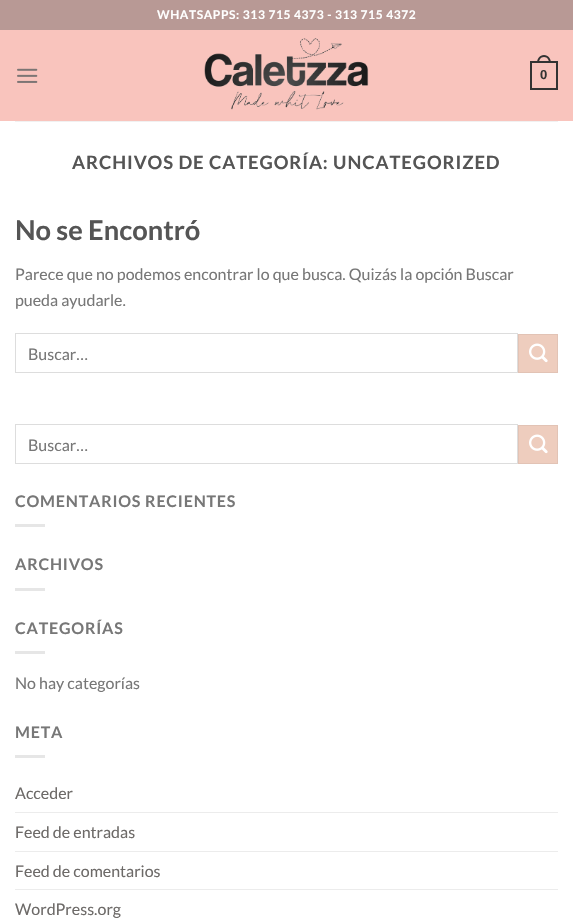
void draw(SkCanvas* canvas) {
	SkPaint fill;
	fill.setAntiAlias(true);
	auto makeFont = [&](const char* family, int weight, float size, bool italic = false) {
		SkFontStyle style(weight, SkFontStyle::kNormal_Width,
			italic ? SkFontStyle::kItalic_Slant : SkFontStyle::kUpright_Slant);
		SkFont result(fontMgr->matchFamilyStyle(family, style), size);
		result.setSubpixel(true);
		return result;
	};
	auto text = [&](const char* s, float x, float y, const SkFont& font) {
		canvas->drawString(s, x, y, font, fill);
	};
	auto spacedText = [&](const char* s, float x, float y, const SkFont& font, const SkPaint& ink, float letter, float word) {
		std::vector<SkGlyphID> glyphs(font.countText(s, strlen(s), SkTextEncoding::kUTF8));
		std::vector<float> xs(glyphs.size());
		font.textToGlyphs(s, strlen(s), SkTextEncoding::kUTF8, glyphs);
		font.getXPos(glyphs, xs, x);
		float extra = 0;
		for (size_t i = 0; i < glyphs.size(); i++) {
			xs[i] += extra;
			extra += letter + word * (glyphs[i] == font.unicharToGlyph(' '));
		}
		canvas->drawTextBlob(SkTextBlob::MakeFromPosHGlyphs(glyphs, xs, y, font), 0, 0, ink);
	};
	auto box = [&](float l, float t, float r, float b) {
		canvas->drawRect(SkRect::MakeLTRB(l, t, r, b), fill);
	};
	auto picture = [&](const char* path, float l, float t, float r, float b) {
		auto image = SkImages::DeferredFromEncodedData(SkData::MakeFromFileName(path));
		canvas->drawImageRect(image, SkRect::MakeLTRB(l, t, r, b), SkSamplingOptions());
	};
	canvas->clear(0xFFFFFFFF);
	fill.setColor(0xFFB89995);
	box(0, 0, 573, 30);
	fill.setColor(0xFFF9C4BD);
	box(0, 30, 573, 121);
	picture("image0.png", 17, 68, 38, 83);
	picture("image1.png", 204, 38, 369, 110);
	fill.setStyle(SkPaint::kStroke_Style);
	fill.setStrokeWidth(2);
	fill.setColor(0xFF333333);
	canvas->drawRect(SkRect::MakeLTRB(531, 62, 557, 89), fill);
	fill.setStyle(SkPaint::kFill_Style);
	canvas->drawPath(SkPathBuilder(SkPathFillType::kEvenOdd).moveTo(544, 55).cubicTo(548.5f, 55, 551, 59, 551, 63).lineTo(537, 63).cubicTo(537, 59, 539.5f, 55, 544, 55).close().moveTo(544, 57).cubicTo(547.5f, 57, 549, 60, 549, 63).lineTo(539, 63).cubicTo(539, 60, 540.5f, 57, 544, 57).close().detach(), fill);
	fill.setColor(0xFFF1F1F1);
	box(15, 121, 558, 122);
	fill.setStyle(SkPaint::kStroke_Style);
	fill.setStrokeWidth(1);
	fill.setColor(0xFFDDDDDD);
	canvas->drawRect(SkRect::MakeLTRB(15.5f, 333.5f, 517.5f, 372.5f), fill);
	fill.setStyle(SkPaint::kFill_Style);
	fill.setColor(0xFFEECDBE);
	canvas->drawRect(SkRect::MakeLTRB(518.5f, 334.5f, 557.5f, 372.5f), fill);
	fill.setStyle(SkPaint::kStroke_Style);
	fill.setColor(0xFFE2C3B5);
	canvas->drawRect(SkRect::MakeLTRB(518.5f, 334.5f, 557.5f, 372.5f), fill);
	picture("image2.png", 529, 343, 548, 363);
	fill.setColor(0xFFDDDDDD);
	canvas->drawRect(SkRect::MakeLTRB(15.5f, 424.5f, 517.5f, 463.5f), fill);
	fill.setStyle(SkPaint::kFill_Style);
	fill.setColor(0xFFEECDBE);
	canvas->drawRect(SkRect::MakeLTRB(518.5f, 425.5f, 557.5f, 463.5f), fill);
	fill.setStyle(SkPaint::kStroke_Style);
	fill.setColor(0xFFE2C3B5);
	canvas->drawRect(SkRect::MakeLTRB(518.5f, 425.5f, 557.5f, 463.5f), fill);
	picture("image2.png", 529, 434, 548, 454);
	fill.setStyle(SkPaint::kFill_Style);
	fill.setColor(0xFFE6E6E6);
	box(15, 524, 45, 527);
	box(15, 588, 45, 591);
	box(15, 651, 45, 654);
	box(15, 755, 45, 758);
	fill.setColor(0xFFECECEC);
	box(15, 812, 558, 813);
	box(15, 851, 558, 852);
	box(15, 889, 558, 890);
	auto font1 = makeFont("Lato", 700, 12);
	fill.setColor(0xFFFFFFFF);
	spacedText("WHATSAPPS: 313 715 4373 - 313 715 4372", 157, 19, font1, fill, 0.6f, 0);
	auto font2 = makeFont("Liberation Sans", 700, 13);
	fill.setColor(0xFF333333);
	text("0", 540, 79, font2);
	auto font3 = makeFont("Lato", 700, 18.4f);
	fill.setColor(0xFF555555);
	spacedText("ARCHIVOS DE CATEGORÍA: UNCATEGORIZED", 72, 169, font3, fill, 0.9f, 0);
	auto font4 = makeFont("Lato", 700, 27.25f);
	text("No se Encontró", 15, 240, font4);
	auto font5 = makeFont("Lato", 400, 16);
	fill.setColor(0xFF777777);
	text("Parece que no podemos encontrar lo que busca. Quizás la opción Buscar", 15, 280, font5);
	text("pueda ayudarle.", 15, 306, font5);
	text("Buscar…", 28, 360, font5);
	text("Buscar…", 28, 451, font5);
	auto font6 = makeFont("Lato", 700, 16);
	spacedText("COMENTARIOS RECIENTES", 15, 507, font6, fill, 0.8f, 0);
	spacedText("ARCHIVOS", 15, 570, font6, fill, 0.8f, 0);
	spacedText("CATEGORÍAS", 15, 634, font6, fill, 0.8f, 0);
	text("No hay categorías", 15, 689, font5);
	spacedText("META", 15, 738, font6, fill, 0.8f, 0);
	fill.setColor(0xFF6D6A68);
	text("Acceder", 15, 799, font5);
	text("Feed de entradas", 15, 838, font5);
	text("Feed de comentarios", 15, 877, font5);
	text("WordPress.org", 15, 915, font5);
}
